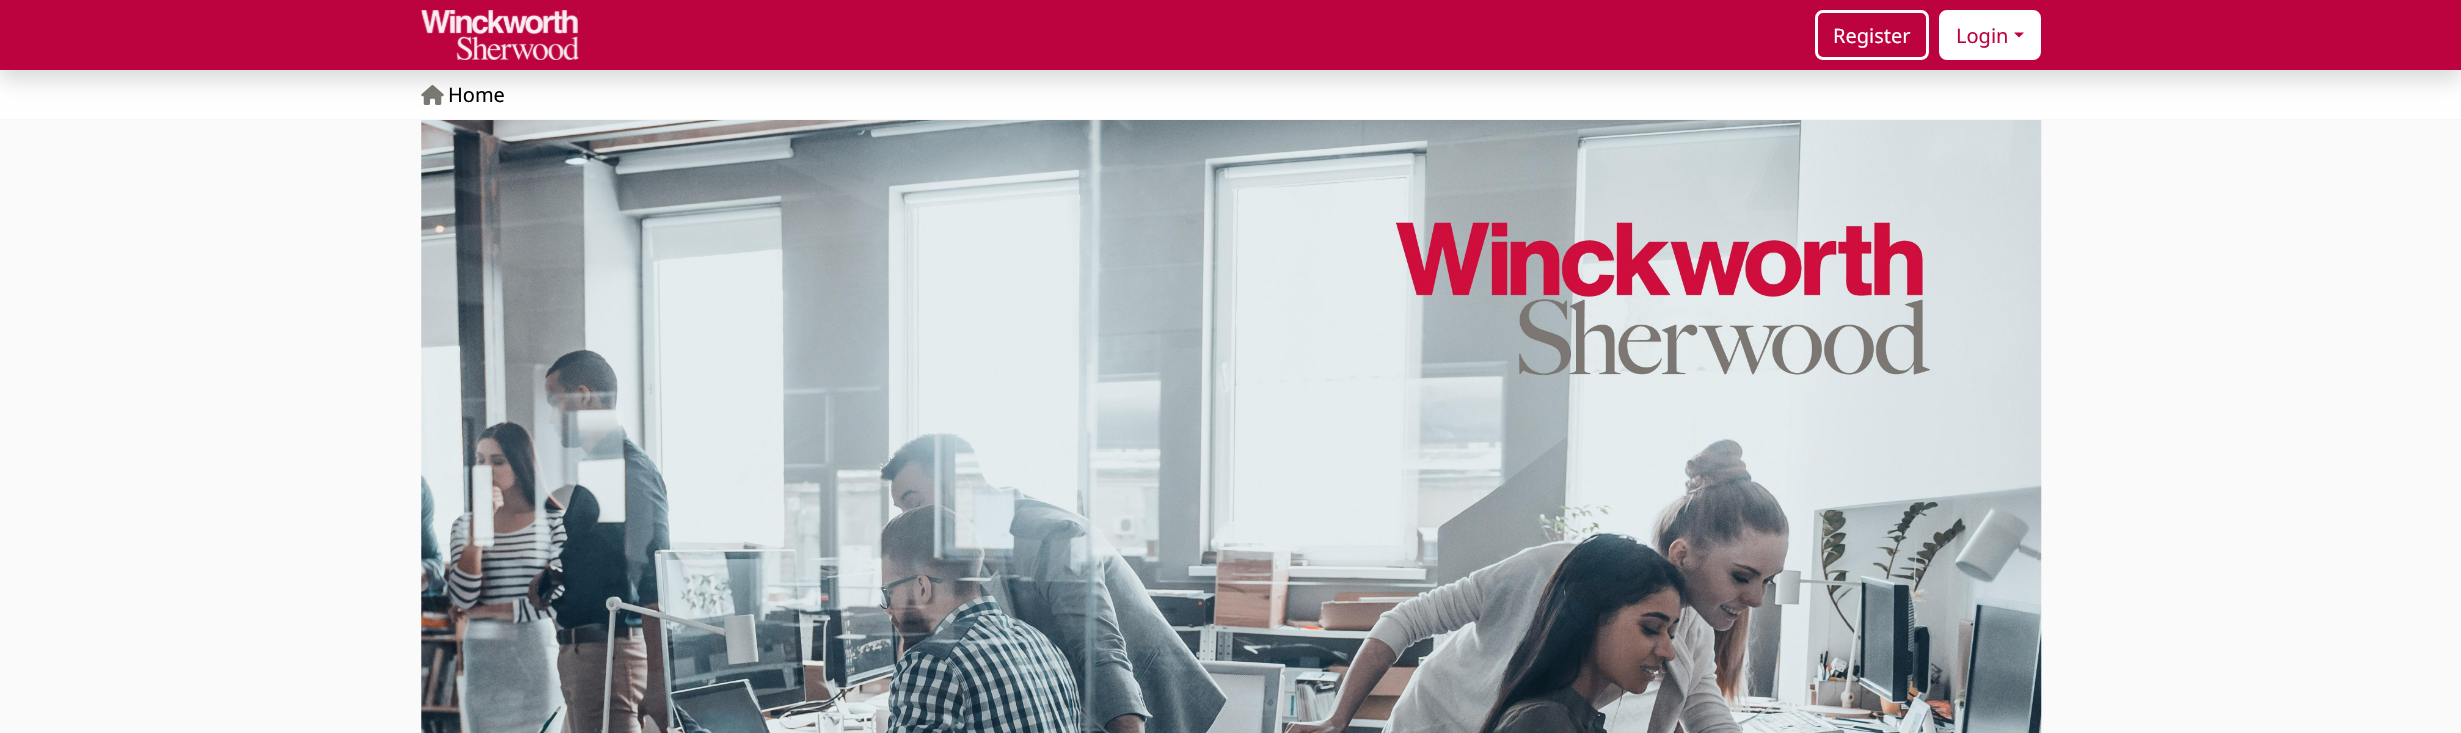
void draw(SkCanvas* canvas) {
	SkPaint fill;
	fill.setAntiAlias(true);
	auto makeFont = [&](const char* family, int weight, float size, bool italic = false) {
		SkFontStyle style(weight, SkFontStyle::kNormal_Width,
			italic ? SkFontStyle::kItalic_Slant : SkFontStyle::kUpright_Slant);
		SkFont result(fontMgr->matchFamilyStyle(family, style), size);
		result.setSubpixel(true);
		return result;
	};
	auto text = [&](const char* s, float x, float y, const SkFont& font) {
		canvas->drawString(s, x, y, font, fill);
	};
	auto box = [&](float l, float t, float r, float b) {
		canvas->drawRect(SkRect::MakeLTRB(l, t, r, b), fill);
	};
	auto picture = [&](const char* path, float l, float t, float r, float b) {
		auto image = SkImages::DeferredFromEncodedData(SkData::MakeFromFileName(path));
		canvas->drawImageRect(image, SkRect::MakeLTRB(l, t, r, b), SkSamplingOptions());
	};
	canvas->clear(0xFFFAFAFA);
	fill.setColor(0xFFFFFFFF);
	box(0, 70, 2461, 119);
	picture("image1.png", 421, 85, 444, 105);
	fill.setColor(0x26000000);
	fill.setMaskFilter(SkMaskFilter::MakeBlur(kNormal_SkBlurStyle, 10));
	canvas->drawRect(SkRect::MakeLTRB(0, 10, 2461, 80), fill);
	fill.setMaskFilter(nullptr);
	fill.setColor(0xFFBC023F);
	box(0, 0, 2461, 70);
	picture("image0.png", 421, 10, 579, 60);
	fill.setStyle(SkPaint::kStroke_Style);
	fill.setStrokeWidth(3);
	fill.setColor(0xFFFFFFFF);
	canvas->drawRoundRect(SkRect::MakeLTRB(1816.5f, 11.5f, 1927.5f, 58.5f), 6.5f, 6.5f, fill);
	fill.setStyle(SkPaint::kFill_Style);
	canvas->drawRoundRect(SkRect::MakeLTRB(1940.5f, 11.5f, 2039.5f, 58.5f), 6.5f, 6.5f, fill);
	fill.setStyle(SkPaint::kStroke_Style);
	canvas->drawRoundRect(SkRect::MakeLTRB(1940.5f, 11.5f, 2039.5f, 58.5f), 6.5f, 6.5f, fill);
	fill.setStyle(SkPaint::kFill_Style);
	fill.setColor(0xFFBC023F);
	canvas->drawPath(SkPathBuilder().moveTo(2014, 32.5f).lineTo(2024, 32.5f).lineTo(2019, 37.5f).close().detach(), fill);
	fill.setColor(0xFFF7F7F7);
	box(0, 119, 2461, 120);
	picture("image2.png", 421, 120, 2042, 733);
	auto font1 = makeFont("Noto Sans", 400, 20);
	fill.setColor(0xFFFFFFFF);
	text("Register", 1833, 43, font1);
	fill.setColor(0xFFBC023F);
	text("Login", 1956, 43, font1);
	fill.setColor(0xFF000000);
	text("Home", 448, 102, font1);
}
